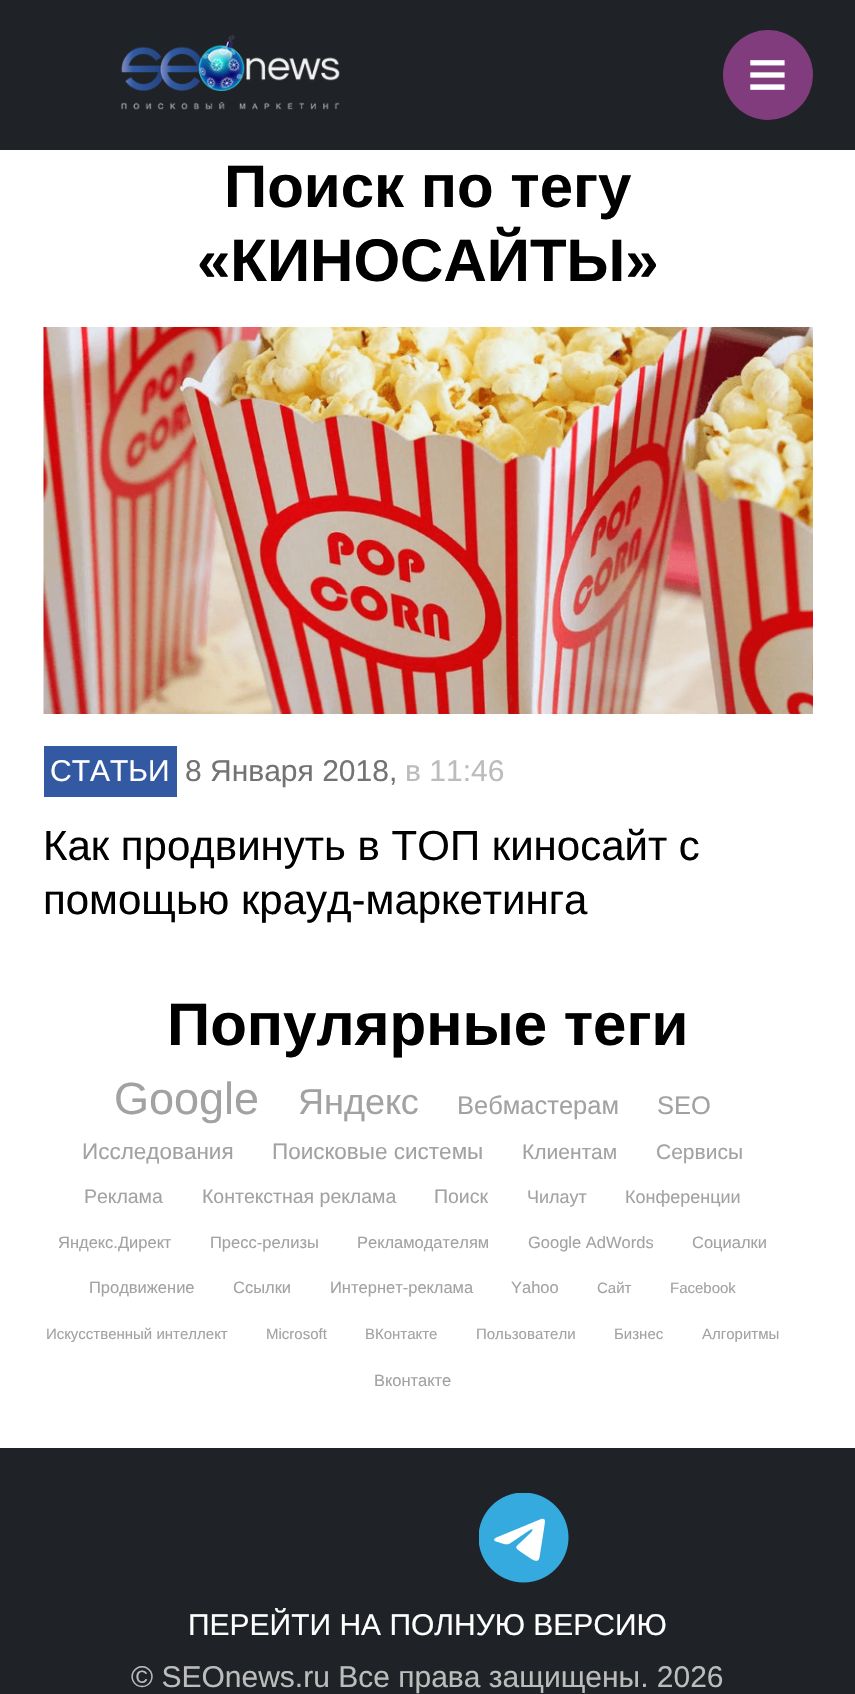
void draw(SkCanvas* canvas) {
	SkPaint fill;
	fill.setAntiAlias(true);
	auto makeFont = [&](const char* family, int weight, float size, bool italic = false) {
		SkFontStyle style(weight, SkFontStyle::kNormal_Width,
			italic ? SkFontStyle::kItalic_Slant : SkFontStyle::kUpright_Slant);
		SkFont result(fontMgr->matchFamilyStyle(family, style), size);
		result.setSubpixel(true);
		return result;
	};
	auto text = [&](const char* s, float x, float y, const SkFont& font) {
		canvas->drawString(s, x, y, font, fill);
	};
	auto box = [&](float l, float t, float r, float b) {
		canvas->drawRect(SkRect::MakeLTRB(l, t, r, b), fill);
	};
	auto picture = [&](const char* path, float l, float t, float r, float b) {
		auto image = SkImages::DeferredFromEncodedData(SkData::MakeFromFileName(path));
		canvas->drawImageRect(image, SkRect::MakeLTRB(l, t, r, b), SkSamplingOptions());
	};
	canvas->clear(0xFFFFFFFF);
	fill.setColor(0xFF1F2226);
	box(0, 0, 855, 150);
	picture("image0.png", 121, 35, 340, 110);
	fill.setColor(0xFF813C7E);
	canvas->drawCircle(768, 75, 45, fill);
	picture("image1.png", 43, 327, 813, 714);
	fill.setColor(0xFF3359A3);
	box(44, 746, 177, 797);
	fill.setColor(0xFF1F2226);
	box(0, 1448, 855, 1694);
	picture("image2.png", 479, 1493, 569, 1583);
	auto font1 = makeFont("Liberation Sans", 400, 70);
	fill.setColor(0xFFFFFFFF);
	text("≡", 747, 98, font1);
	auto font2 = makeFont("Liberation Sans", 700, 60);
	fill.setColor(0xFF000000);
	text("Поиск по тегу", 224, 207, font2);
	text("«КИНОСАЙТЫ»", 197, 281, font2);
	auto font3 = makeFont("Liberation Sans", 400, 30);
	fill.setColor(0xFFFFFFFF);
	text("СТАТЬИ", 50, 781, font3);
	fill.setColor(0xFF737373);
	text("8 Января 2018,", 185, 781, font3);
	fill.setColor(0xFFBCBCBC);
	text("в 11:46", 405, 781, font3);
	auto font4 = makeFont("Liberation Sans", 400, 42);
	fill.setColor(0xFF000000);
	text("Как продвинуть в ТОП киносайт с", 43, 860, font4);
	text("помощью крауд-маркетинга", 43, 914, font4);
	text("Популярные теги", 167, 1045, font2);
	auto font5 = makeFont("Liberation Sans", 400, 45);
	fill.setColor(0xFFA2A2A2);
	text("Google", 114, 1114, font5);
	auto font6 = makeFont("Liberation Sans", 400, 36);
	text("Яндекс", 298, 1114, font6);
	auto font7 = makeFont("Liberation Sans", 400, 25.5f);
	text("Вебмастерам", 457, 1114, font7);
	text("SEO", 657, 1114, font7);
	auto font8 = makeFont("Liberation Sans", 400, 22.5f);
	text("Исследования", 82, 1159, font8);
	text("Поисковые системы", 272, 1159, font8);
	auto font9 = makeFont("Liberation Sans", 400, 21);
	text("Клиентам", 522, 1159, font9);
	text("Сервисы", 656, 1159, font9);
	auto font10 = makeFont("Liberation Sans", 400, 19.5f);
	text("Реклама", 84, 1203, font10);
	text("Контекстная реклама", 202, 1203, font10);
	text("Поиск", 434, 1203, font10);
	auto font11 = makeFont("Liberation Sans", 400, 18);
	text("Чилаут", 527, 1203, font11);
	text("Конференции", 625, 1203, font11);
	auto font12 = makeFont("Liberation Sans", 400, 16.5f);
	text("Яндекс.Директ", 58, 1248, font12);
	text("Пресс-релизы", 210, 1248, font12);
	text("Рекламодателям", 357, 1248, font12);
	text("Google AdWords", 528, 1248, font12);
	text("Социалки", 692, 1248, font12);
	text("Продвижение", 89, 1293, font12);
	text("Ссылки", 233, 1293, font12);
	text("Интернет-реклама", 330, 1293, font12);
	text("Yahoo", 511, 1293, font12);
	auto font13 = makeFont("Liberation Sans", 400, 15);
	text("Сайт", 597, 1293, font13);
	text("Facebook", 670, 1293, font13);
	text("Искусственный интеллект", 46, 1339, font13);
	text("Microsoft", 266, 1339, font13);
	text("ВКонтакте", 365, 1339, font13);
	text("Пользователи", 476, 1339, font13);
	text("Бизнес", 614, 1339, font13);
	text("Алгоритмы", 702, 1339, font13);
	text("Вконтакте", 374, 1386, font12);
	fill.setColor(0xFFFFFFFF);
	text("ПЕРЕЙТИ НА ПОЛНУЮ ВЕРСИЮ", 188, 1635, font3);
	fill.setColor(0xFFBCBCBC);
	text("© SEOnews.ru Все права защищены. 2026", 131, 1687, font3);
}
